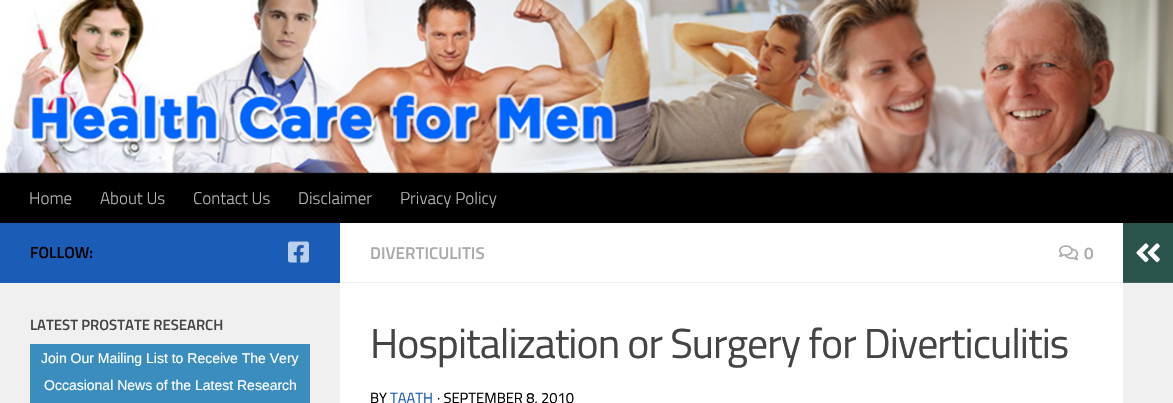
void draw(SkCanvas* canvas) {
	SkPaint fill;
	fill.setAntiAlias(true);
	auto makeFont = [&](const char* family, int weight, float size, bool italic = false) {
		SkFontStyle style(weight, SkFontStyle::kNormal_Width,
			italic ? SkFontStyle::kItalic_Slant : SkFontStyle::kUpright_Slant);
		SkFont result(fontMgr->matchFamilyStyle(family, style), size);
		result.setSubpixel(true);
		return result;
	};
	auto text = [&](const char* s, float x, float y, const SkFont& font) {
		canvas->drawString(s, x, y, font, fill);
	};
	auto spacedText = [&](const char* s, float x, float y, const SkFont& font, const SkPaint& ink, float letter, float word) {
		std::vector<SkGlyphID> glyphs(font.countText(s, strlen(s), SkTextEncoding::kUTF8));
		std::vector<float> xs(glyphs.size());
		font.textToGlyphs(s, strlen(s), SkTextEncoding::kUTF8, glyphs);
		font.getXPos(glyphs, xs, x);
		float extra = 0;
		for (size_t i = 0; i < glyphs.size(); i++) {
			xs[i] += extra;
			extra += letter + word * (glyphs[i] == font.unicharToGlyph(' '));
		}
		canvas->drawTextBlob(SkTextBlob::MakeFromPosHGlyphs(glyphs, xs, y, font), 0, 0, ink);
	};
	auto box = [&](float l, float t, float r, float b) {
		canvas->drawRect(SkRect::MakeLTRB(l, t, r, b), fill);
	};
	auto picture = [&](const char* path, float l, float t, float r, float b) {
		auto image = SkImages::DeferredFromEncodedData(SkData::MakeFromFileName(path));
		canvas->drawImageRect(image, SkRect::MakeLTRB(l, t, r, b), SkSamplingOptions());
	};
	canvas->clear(0xFFFFFFFF);
	picture("image0.png", 1, 0, 1173, 173);
	fill.setColor(0x33000000);
	box(0, 172, 1173, 173);
	fill.setColor(0xFF000000);
	box(0, 174, 1173, 223);
	fill.setColor(0xFF0D0D0D);
	box(0, 173, 1173, 174);
	fill.setColor(0xFF1B5CB7);
	box(0, 223, 340, 283);
	picture("image1.png", 288, 241, 309, 263);
	fill.setColor(0xFFF0F0F0);
	box(0, 283, 340, 403);
	fill.setColor(0xFF3B8DBD);
	box(30, 344, 310, 403);
	fill.setColor(0xFFEEEEEE);
	box(340, 282, 1123, 283);
	picture("image2.png", 1059, 245, 1079, 260);
	fill.setColor(0xFF2A544B);
	box(1123, 223, 1173, 282);
	fill.setColor(0xFF3F655D);
	box(1123, 282, 1173, 283);
	picture("image3.png", 1136, 243, 1160, 263);
	fill.setColor(0xFFF0F0F0);
	box(1123, 283, 1173, 403);
	auto font1 = makeFont("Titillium", 300, 17);
	fill.setColor(0xFFB3B3B3);
	text("Home", 29, 204, font1);
	text("About Us", 100, 204, font1);
	text("Contact Us", 193, 204, font1);
	text("Disclaimer", 298, 204, font1);
	text("Privacy Policy", 400, 204, font1);
	auto font2 = makeFont("Titillium", 600, 16);
	fill.setColor(0xFF000000);
	text("FOLLOW:", 30, 258, font2);
	auto font3 = makeFont("Titillium", 600, 14.9f);
	fill.setColor(0xFF444444);
	text("LATEST PROSTATE RESEARCH", 30, 330, font3);
	auto font4 = makeFont("Liberation Sans", 400, 14);
	fill.setColor(0xFFFFFFFF);
	text("Join Our Mailing List to Receive The Very", 41, 363, font4);
	text("Occasional News of the Latest Research", 44, 390, font4);
	auto font5 = makeFont("Titillium", 600, 17);
	fill.setColor(0xFFAAAAAA);
	text("DIVERTICULITIS", 370, 259, font5);
	text("0", 1084, 259, font5);
	auto font6 = makeFont("Titillium", 400, 41.9f);
	fill.setColor(0xFF444444);
	spacedText("Hospitalization or Surgery for Diverticulitis", 370, 358, font6, fill, -1, 0);
	auto font7 = makeFont("Titillium", 400, 14.75f);
	fill.setColor(0xFF000000);
	text("BY", 370, 403, font7);
	fill.setColor(0xFF1B5CB7);
	text("TAATH", 390, 403, font7);
	fill.setColor(0xFF000000);
	text("· SEPTEMBER 8, 2010", 437, 403, font7);
}
